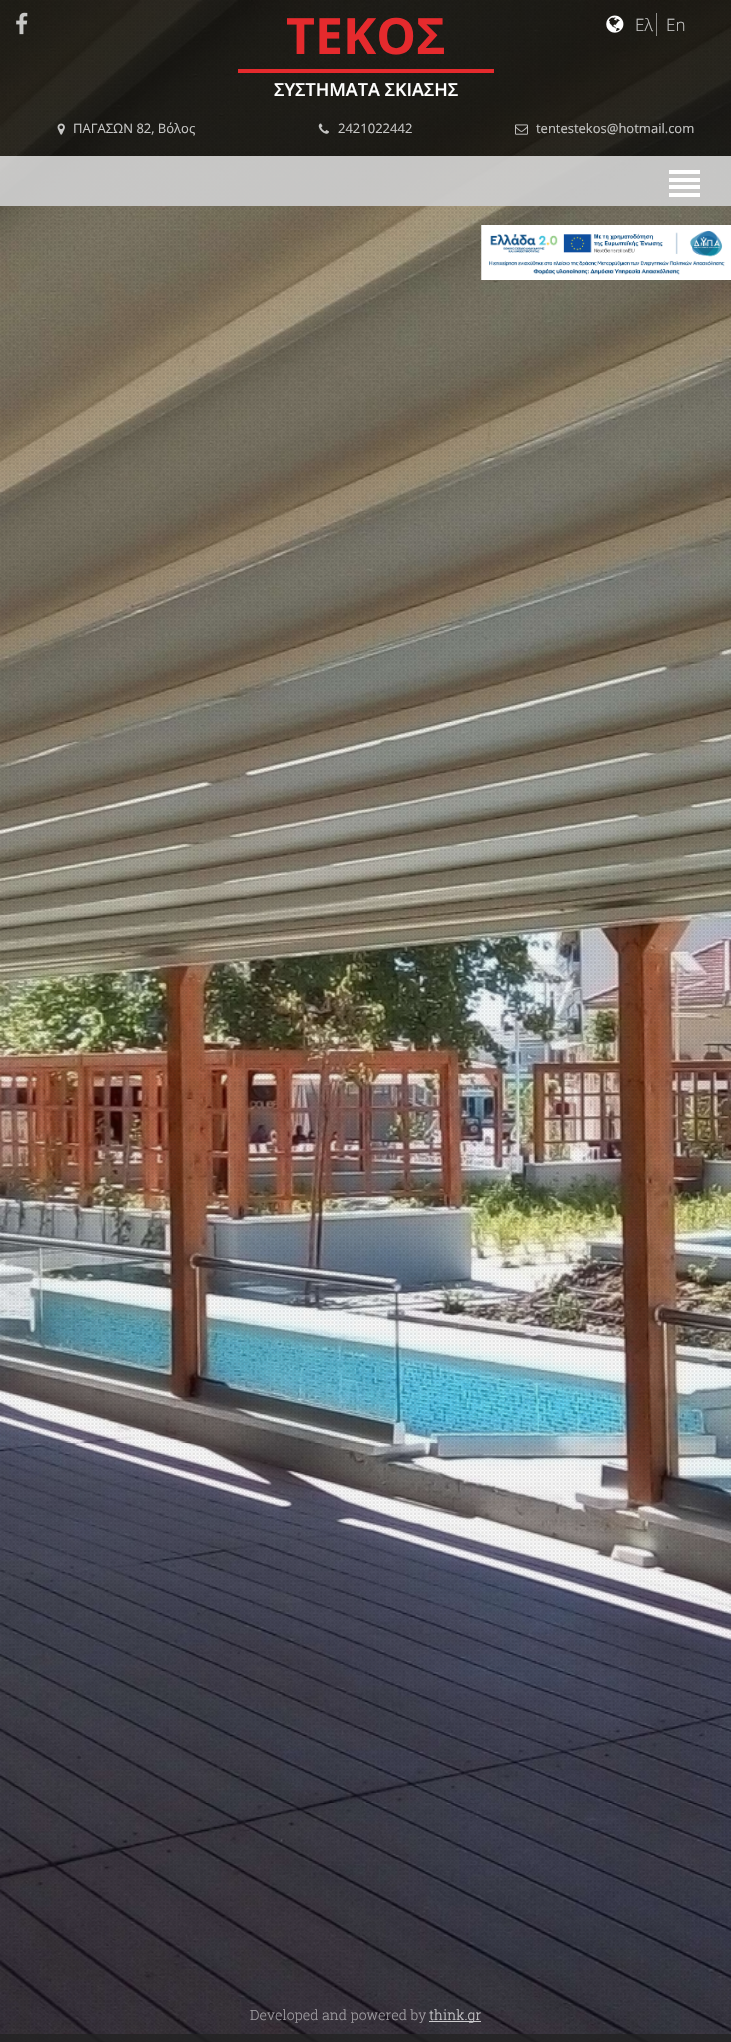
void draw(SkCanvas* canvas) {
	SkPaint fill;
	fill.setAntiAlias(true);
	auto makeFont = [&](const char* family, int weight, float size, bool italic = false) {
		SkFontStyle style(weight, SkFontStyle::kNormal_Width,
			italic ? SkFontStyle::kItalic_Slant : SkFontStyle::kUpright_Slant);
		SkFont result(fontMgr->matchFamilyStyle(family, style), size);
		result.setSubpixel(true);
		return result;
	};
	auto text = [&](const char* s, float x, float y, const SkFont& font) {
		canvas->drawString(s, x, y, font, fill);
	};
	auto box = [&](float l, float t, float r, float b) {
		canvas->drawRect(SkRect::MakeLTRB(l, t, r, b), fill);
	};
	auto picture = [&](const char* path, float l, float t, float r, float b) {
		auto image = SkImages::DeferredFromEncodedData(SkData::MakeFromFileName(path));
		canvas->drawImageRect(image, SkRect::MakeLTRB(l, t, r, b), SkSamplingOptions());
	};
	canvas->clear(0xFFFFFFFF);
	picture("image0.png", 0, 0, 731, 2042);
	picture("image1.png", 0, 0, 731, 2042);
	fill.setColor(0xCC222222);
	box(0, 2034, 731, 2042);
	fill.setColor(0xBF000000);
	box(0, 0, 731, 206);
	picture("image2.png", 16, 12, 28, 35);
	fill.setColor(0xFFE52A2D);
	box(238, 69, 494, 73);
	picture("image3.png", 606, 15, 624, 33);
	fill.setColor(0x80FFFFFF);
	box(656, 13, 657, 36);
	picture("image4.png", 57, 123, 65, 135);
	picture("image5.png", 318, 123, 329, 134);
	picture("image6.png", 515, 124, 528, 135);
	fill.setColor(0xBFFFFFFF);
	box(0, 156, 731, 206);
	fill.setColor(0xFFFFFFFF);
	box(669, 170, 700, 174);
	box(669, 178, 700, 182);
	box(669, 185, 700, 189);
	box(669, 193, 700, 197);
	fill.setColor(0xBFFFFFFF);
	box(429, 2021, 481, 2022);
	picture("image7.png", 481, 225, 731, 280);
	auto font1 = makeFont("Open Sans", 700, 50);
	fill.setColor(0xFFE52A2D);
	text("ΤΕΚΟΣ", 286, 54, font1);
	auto font2 = makeFont("Open Sans", 600, 18);
	fill.setColor(0xFFFFFFFF);
	text("ΣΥΣΤΗΜΑΤΑ ΣΚΙΑΣΗΣ", 274, 96, font2);
	auto font3 = makeFont("Open Sans", 300, 17);
	fill.setColor(0xFFC6C6C5);
	text("Ελ", 635, 31, font3);
	text("En", 666, 31, font3);
	auto font4 = makeFont("Open Sans", 400, 13);
	text("ΠΑΓΑΣΩΝ 82, Βόλος", 73, 133, font4);
	text("2421022442", 338, 133, font4);
	text("tentestekos@hotmail.com", 536, 133, font4);
	auto font5 = makeFont("Roboto Slab", 300, 14);
	fill.setColor(0xFFA3A1A5);
	text("Developed and powered by", 250, 2020, font5);
	fill.setColor(0xFFCDCDCF);
	text("think.gr", 429, 2020, font5);
}
